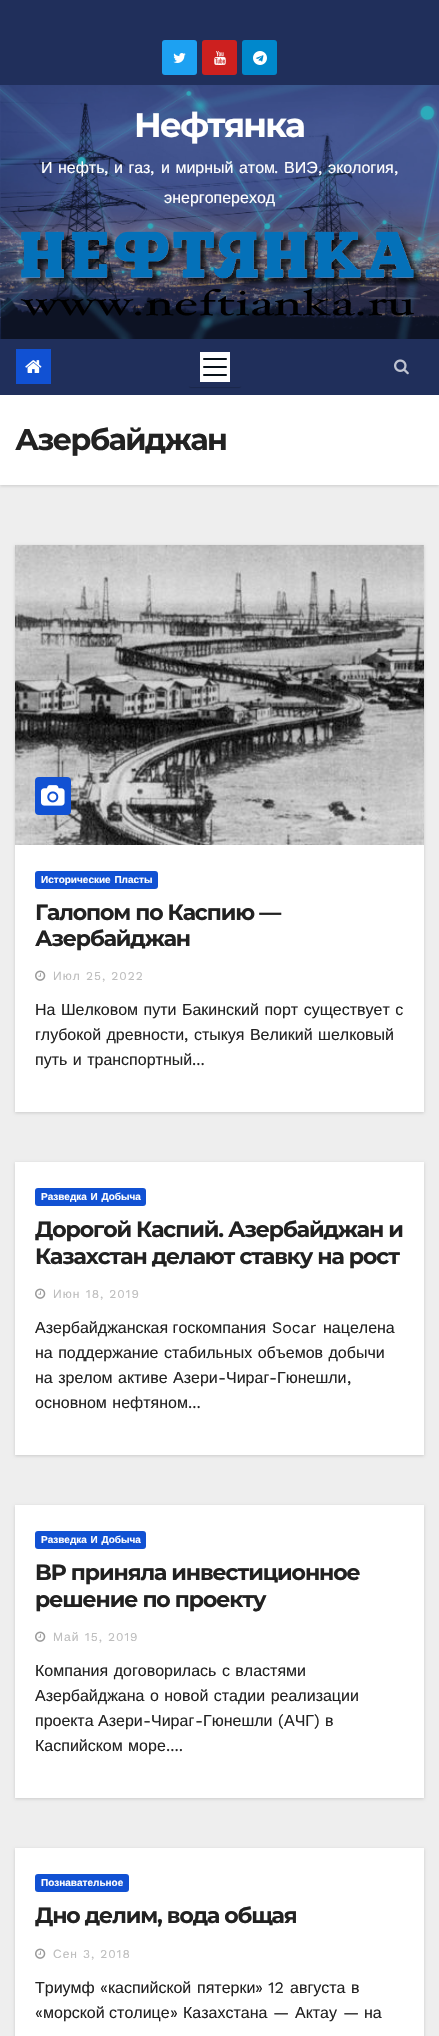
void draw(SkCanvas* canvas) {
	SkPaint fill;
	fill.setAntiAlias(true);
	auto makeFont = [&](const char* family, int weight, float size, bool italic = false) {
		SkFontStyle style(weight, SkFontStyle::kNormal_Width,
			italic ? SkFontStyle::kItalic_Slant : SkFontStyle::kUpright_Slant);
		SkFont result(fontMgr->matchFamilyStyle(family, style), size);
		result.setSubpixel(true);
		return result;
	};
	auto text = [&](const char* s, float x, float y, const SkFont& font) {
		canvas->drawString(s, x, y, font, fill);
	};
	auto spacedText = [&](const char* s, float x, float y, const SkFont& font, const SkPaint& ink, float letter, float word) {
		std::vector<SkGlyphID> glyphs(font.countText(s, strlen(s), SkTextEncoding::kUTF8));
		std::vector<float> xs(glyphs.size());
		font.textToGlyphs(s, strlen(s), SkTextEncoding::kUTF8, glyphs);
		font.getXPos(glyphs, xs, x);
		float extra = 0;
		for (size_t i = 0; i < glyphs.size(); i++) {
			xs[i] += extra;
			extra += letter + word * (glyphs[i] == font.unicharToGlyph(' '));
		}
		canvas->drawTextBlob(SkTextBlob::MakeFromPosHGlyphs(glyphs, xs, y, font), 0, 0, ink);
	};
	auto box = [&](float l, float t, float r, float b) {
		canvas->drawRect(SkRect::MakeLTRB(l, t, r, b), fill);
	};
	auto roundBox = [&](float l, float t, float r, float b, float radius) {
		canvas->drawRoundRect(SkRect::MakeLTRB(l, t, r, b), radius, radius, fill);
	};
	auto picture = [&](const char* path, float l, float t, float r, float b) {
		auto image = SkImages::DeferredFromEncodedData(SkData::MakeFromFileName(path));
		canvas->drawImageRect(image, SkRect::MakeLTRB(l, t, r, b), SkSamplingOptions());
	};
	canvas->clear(0xFFEEEEEE);
	fill.setColor(0xFF202F5B);
	box(0, 0, 439, 85);
	fill.setColor(0xFF1DA1F2);
	roundBox(162, 40, 197, 75, 3);
	picture("image0.png", 173, 53, 186, 63);
	fill.setColor(0xFFCD201F);
	roundBox(202, 40, 237, 75, 3);
	picture("image1.png", 214, 51, 226, 65);
	fill.setColor(0xFF0088CC);
	roundBox(242, 40, 277, 75, 3);
	picture("image2.png", 253, 51, 267, 65);
	picture("image3.png", 0, 85, 439, 339);
	picture("image4.png", 20, 231, 422, 316);
	fill.setColor(0x26000000);
	fill.setMaskFilter(SkMaskFilter::MakeBlur(kNormal_SkBlurStyle, 1.5f));
	canvas->drawRect(SkRect::MakeLTRB(0, 396, 439, 486), fill);
	fill.setMaskFilter(nullptr);
	fill.setColor(0xFF202F5B);
	box(0, 339, 439, 395);
	fill.setColor(0xFF1151D3);
	box(16, 349, 51, 384);
	picture("image5.png", 25, 360, 42, 373);
	canvas->save();
	canvas->clipPath(SkPathBuilder(SkPathFillType::kEvenOdd).moveTo(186, 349).lineTo(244, 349).lineTo(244, 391).lineTo(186, 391).close().moveTo(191, 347).lineTo(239, 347).cubicTo(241, 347, 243, 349, 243, 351).lineTo(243, 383).cubicTo(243, 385, 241, 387, 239, 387).lineTo(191, 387).cubicTo(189, 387, 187, 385, 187, 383).lineTo(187, 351).cubicTo(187, 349, 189, 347, 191, 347).close().detach(), true);
	fill.setColor(0x33000000);
	fill.setMaskFilter(SkMaskFilter::MakeBlur(kNormal_SkBlurStyle, 0.5f));
	canvas->drawRoundRect(SkRect::MakeLTRB(189, 352, 241, 388), 2, 2, fill);
	fill.setMaskFilter(nullptr);
	canvas->restore();
	fill.setColor(0xFFFFFFFF);
	box(200, 352, 230, 382);
	picture("image6.png", 203, 358, 227, 376);
	picture("image7.png", 394, 359, 409, 375);
	box(0, 395, 439, 485);
	fill.setColor(0x26000000);
	fill.setMaskFilter(SkMaskFilter::MakeBlur(kNormal_SkBlurStyle, 1.5f));
	canvas->drawRect(SkRect::MakeLTRB(15, 546, 424, 1113), fill);
	fill.setMaskFilter(nullptr);
	fill.setColor(0xFFFFFFFF);
	box(15, 845, 424, 1112);
	picture("image8.png", 15, 545, 424, 845);
	fill.setColor(0xFF1151D3);
	roundBox(35, 777, 71, 815, 4);
	picture("image9.png", 41, 785, 65, 806);
	roundBox(35, 871, 158, 889, 3);
	picture("image10.png", 35, 970, 46, 981);
	fill.setColor(0x26000000);
	fill.setMaskFilter(SkMaskFilter::MakeBlur(kNormal_SkBlurStyle, 1.5f));
	canvas->drawRect(SkRect::MakeLTRB(15, 1163, 424, 1456), fill);
	fill.setMaskFilter(nullptr);
	fill.setColor(0xFFFFFFFF);
	box(15, 1162, 424, 1455);
	fill.setColor(0xFF1151D3);
	roundBox(35, 1188, 146, 1206, 3);
	picture("image10.png", 35, 1288, 46, 1299);
	fill.setColor(0x26000000);
	fill.setMaskFilter(SkMaskFilter::MakeBlur(kNormal_SkBlurStyle, 1.5f));
	canvas->drawRect(SkRect::MakeLTRB(15, 1506, 424, 1799), fill);
	fill.setMaskFilter(nullptr);
	fill.setColor(0xFFFFFFFF);
	box(15, 1505, 424, 1798);
	fill.setColor(0xFF1151D3);
	roundBox(35, 1531, 146, 1549, 3);
	picture("image10.png", 35, 1631, 46, 1642);
	fill.setColor(0x26000000);
	fill.setMaskFilter(SkMaskFilter::MakeBlur(kNormal_SkBlurStyle, 1.5f));
	canvas->drawRect(SkRect::MakeLTRB(15, 1849, 424, 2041), fill);
	fill.setMaskFilter(nullptr);
	fill.setColor(0xFFFFFFFF);
	box(15, 1848, 424, 2036);
	fill.setColor(0xFF1151D3);
	roundBox(35, 1874, 129, 1892, 3);
	picture("image10.png", 35, 1948, 46, 1959);
	auto font1 = makeFont("Montserrat", 700, 34);
	fill.setColor(0xFFFFFFFF);
	spacedText("Нефтянка", 134, 137, font1, fill, -1.75f, 0);
	auto font2 = makeFont("Liberation Sans", 400, 16);
	spacedText("И нефть", 41, 173, font2, fill, 0, 1);
	auto font3 = makeFont("Work Sans", 400, 16);
	text(",", 104, 173, font3);
	spacedText("и газ", 114, 173, font2, fill, 0, 1);
	text(",", 150, 173, font3);
	spacedText("и мирный атом", 161, 173, font2, fill, 0, 1);
	text(".", 274, 173, font3);
	text("ВИЭ", 284, 173, font2);
	text(",", 318, 173, font3);
	text("экология", 328, 173, font2);
	text(",", 394, 173, font3);
	text("энергопереход", 164, 203, font2);
	auto font4 = makeFont("Montserrat", 700, 30);
	fill.setColor(0xFF222222);
	spacedText("Азербайджан", 15, 450, font4, fill, -1.5f, 0);
	auto font5 = makeFont("Liberation Sans", 700, 10);
	fill.setColor(0xFFFFFFFF);
	spacedText("Исторические Пласты", 41, 883, font5, fill, 0, 1);
	auto font6 = makeFont("Montserrat", 700, 22);
	fill.setColor(0xFF222222);
	spacedText("Галопом по Каспию —", 35, 920, font6, fill, -1.1f, 0);
	spacedText("Азербайджан", 35, 946, font6, fill, -1.1f, 0);
	auto font7 = makeFont("Liberation Sans", 400, 12);
	fill.setColor(0xFFBDBDBD);
	spacedText("Июл", 53, 980, font7, fill, 1, 0);
	auto font8 = makeFont("Work Sans", 400, 12);
	spacedText("25, 2022", 86, 980, font8, fill, 1, 0);
	fill.setColor(0xFF222222);
	spacedText("На Шелковом пути Бакинский порт существует с", 35, 1015, font2, fill, 0, 1);
	spacedText("глубокой древности", 35, 1040, font2, fill, 0, 1);
	text(",", 184, 1040, font3);
	spacedText("стыкуя Великий шелковый", 194, 1040, font2, fill, 0, 1);
	spacedText("путь и транспортный", 35, 1065, font2, fill, 0, 1);
	text("...", 192, 1065, font3);
	fill.setColor(0xFFFFFFFF);
	spacedText("Разведка И Добыча", 41, 1200, font5, fill, 0, 1);
	fill.setColor(0xFF222222);
	spacedText("Дорогой Каспий. Азербайджан и", 35, 1237, font6, fill, -1.1f, 0);
	spacedText("Казахстан делают ставку на рост", 35, 1264, font6, fill, -1.1f, 0);
	fill.setColor(0xFFBDBDBD);
	spacedText("Июн", 53, 1298, font7, fill, 1, 0);
	spacedText("18, 2019", 86, 1298, font8, fill, 1, 0);
	fill.setColor(0xFF222222);
	text("Азербайджанская госкомпания", 35, 1333, font2);
	text("Socar", 272, 1333, font3);
	text("нацелена", 323, 1333, font2);
	spacedText("на поддержание стабильных объемов добычи", 35, 1358, font2, fill, 0, 1);
	spacedText("на зрелом активе Азери", 35, 1383, font2, fill, 0, 1);
	text("-", 218, 1383, font3);
	text("Чираг", 226, 1383, font2);
	text("-", 269, 1383, font3);
	text("Гюнешли", 277, 1383, font2);
	text(",", 347, 1383, font3);
	spacedText("основном нефтяном", 35, 1408, font2, fill, 0, 1);
	text("...", 188, 1408, font3);
	fill.setColor(0xFFFFFFFF);
	spacedText("Разведка И Добыча", 41, 1543, font5, fill, 0, 1);
	fill.setColor(0xFF222222);
	spacedText("BP приняла инвестиционное", 35, 1580, font6, fill, -1.1f, 0);
	spacedText("решение по проекту", 35, 1607, font6, fill, -1.1f, 0);
	fill.setColor(0xFFBDBDBD);
	spacedText("Май", 53, 1641, font7, fill, 1, 0);
	spacedText("15, 2019", 85, 1641, font8, fill, 1, 0);
	fill.setColor(0xFF222222);
	spacedText("Компания договорилась с властями", 35, 1676, font2, fill, 0, 1);
	spacedText("Азербайджана о новой стадии реализации", 35, 1701, font2, fill, 0, 1);
	text("проекта Азери", 35, 1726, font2);
	text("-", 143, 1726, font3);
	text("Чираг", 151, 1726, font2);
	text("-", 195, 1726, font3);
	text("Гюнешли", 203, 1726, font2);
	text("(", 278, 1726, font3);
	text("АЧГ", 284, 1726, font2);
	text(")", 314, 1726, font3);
	text("в", 325, 1726, font2);
	spacedText("Каспийском море", 35, 1751, font2, fill, 0, 1);
	text("....", 166, 1751, font3);
	fill.setColor(0xFFFFFFFF);
	text("Познавательное", 41, 1886, font5);
	fill.setColor(0xFF222222);
	spacedText("Дно делим, вода общая", 35, 1923, font6, fill, -1.1f, 0);
	fill.setColor(0xFFBDBDBD);
	spacedText("Сен", 53, 1958, font7, fill, 1, 0);
	spacedText("3, 2018", 83, 1958, font8, fill, 1, 0);
	fill.setColor(0xFF222222);
	text("Триумф", 35, 1993, font2);
	text("«", 100, 1993, font3);
	text("каспийской", 108, 1993, font2);
	text("пятерки", 197, 1993, font2);
	text("» 12", 255, 1993, font3);
	text("августа", 290, 1993, font2);
	text("в", 351, 1993, font2);
	text("«", 35, 2018, font3);
	text("морской столице", 43, 2018, font2);
	text("»", 170, 2018, font3);
	text("Казахстана", 183, 2018, font2);
	text("—", 273, 2018, font3);
	text("Актау", 295, 2018, font2);
	text("—", 343, 2018, font3);
	text("на", 364, 2018, font2);
}
